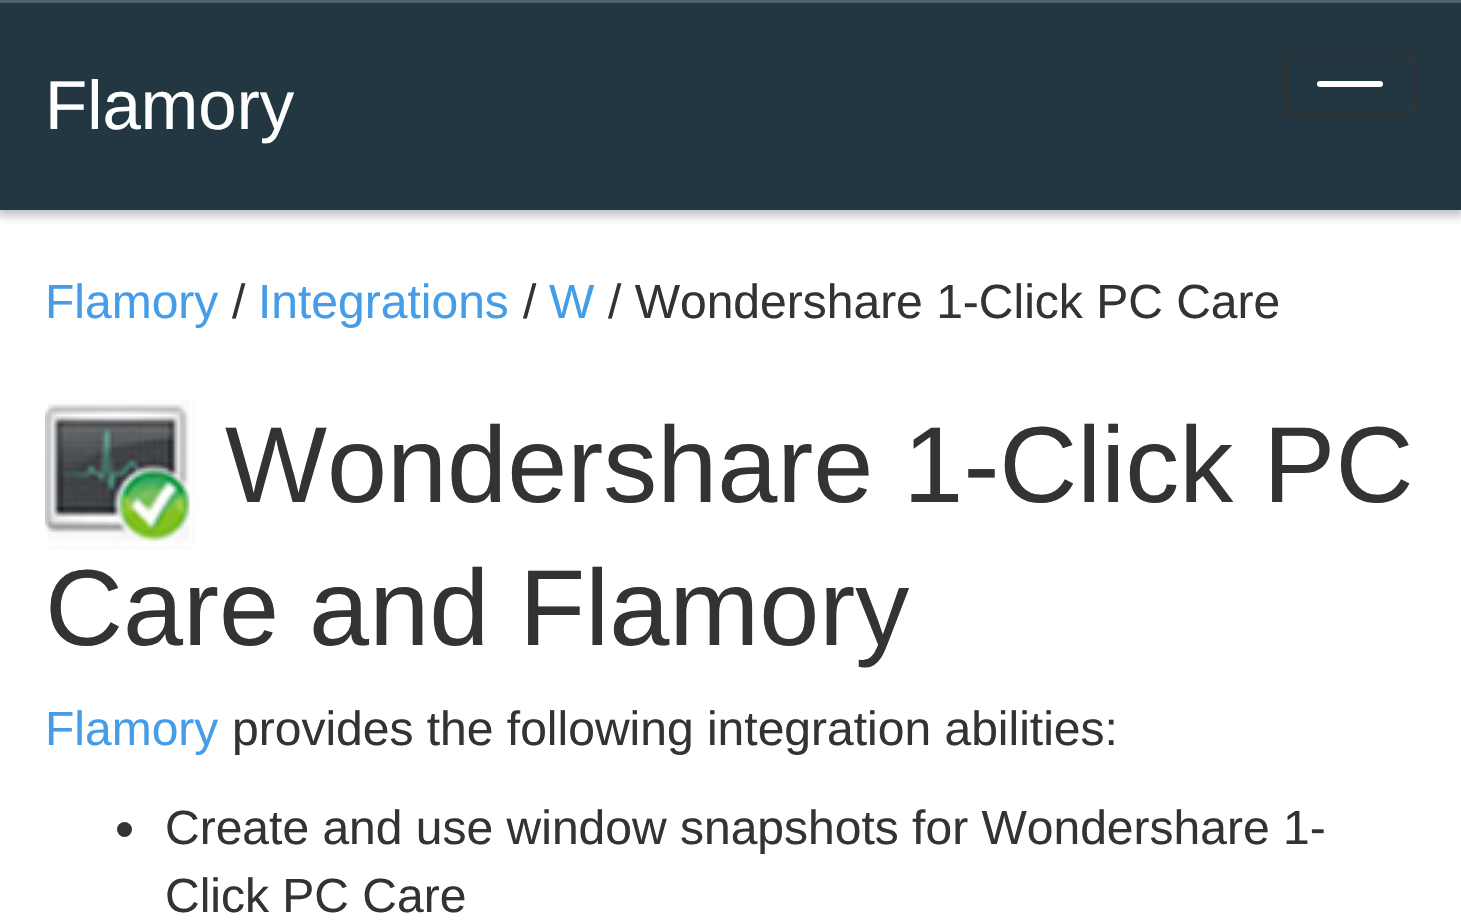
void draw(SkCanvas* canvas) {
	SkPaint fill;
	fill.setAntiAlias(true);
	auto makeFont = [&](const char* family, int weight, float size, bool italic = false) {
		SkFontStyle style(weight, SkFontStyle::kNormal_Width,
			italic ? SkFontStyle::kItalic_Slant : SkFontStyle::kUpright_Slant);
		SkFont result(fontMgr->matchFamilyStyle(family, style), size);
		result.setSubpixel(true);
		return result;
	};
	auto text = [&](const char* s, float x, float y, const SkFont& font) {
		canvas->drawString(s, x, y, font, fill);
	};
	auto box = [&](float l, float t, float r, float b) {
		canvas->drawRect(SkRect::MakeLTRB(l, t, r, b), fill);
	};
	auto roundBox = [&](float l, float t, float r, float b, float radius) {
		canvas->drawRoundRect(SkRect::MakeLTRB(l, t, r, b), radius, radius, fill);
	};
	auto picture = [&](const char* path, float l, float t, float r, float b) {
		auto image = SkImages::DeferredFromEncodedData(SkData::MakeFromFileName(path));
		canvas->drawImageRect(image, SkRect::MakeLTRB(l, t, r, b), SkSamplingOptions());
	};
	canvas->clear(0xFFFFFFFF);
	fill.setColor(0x4D2E2E2E);
	fill.setMaskFilter(SkMaskFilter::MakeBlur(kNormal_SkBlurStyle, 4.5f));
	canvas->drawRect(SkRect::MakeLTRB(-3, 0, 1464, 216), fill);
	fill.setMaskFilter(nullptr);
	fill.setColor(0xFF223741);
	box(0, 3, 1461, 210);
	fill.setColor(0xFF4E5F67);
	box(0, 0, 1461, 3);
	fill.setStyle(SkPaint::kStroke_Style);
	fill.setStrokeWidth(3);
	fill.setColor(0xFF333333);
	canvas->drawRoundRect(SkRect::MakeLTRB(1285.5f, 52.5f, 1414.5f, 115.5f), 10.5f, 10.5f, fill);
	fill.setStyle(SkPaint::kFill_Style);
	fill.setColor(0xFFFFFFFF);
	roundBox(1317, 81, 1383, 87, 3);
	picture("image0.png", 45, 399, 195, 549);
	fill.setColor(0xFF333333);
	canvas->drawCircle(124.5f, 829.5f, 7.5f, fill);
	auto font1 = makeFont("Liberation Sans", 400, 69);
	fill.setColor(0xFFFFFFFF);
	text("Flamory", 45, 129, font1);
	auto font2 = makeFont("Liberation Sans", 400, 48);
	fill.setColor(0xFF459CE7);
	text("Flamory", 45, 318, font2);
	fill.setColor(0xFF333333);
	text("/", 232, 318, font2);
	fill.setColor(0xFF459CE7);
	text("Integrations", 258, 318, font2);
	fill.setColor(0xFF333333);
	text("/", 523, 318, font2);
	fill.setColor(0xFF459CE7);
	text("W", 549, 318, font2);
	fill.setColor(0xFF333333);
	text("/ Wondershare 1-Click PC Care", 608, 318, font2);
	auto font3 = makeFont("Liberation Sans", 400, 108);
	text("Wondershare 1-Click PC", 225, 502, font3);
	text("Care and Flamory", 45, 645, font3);
	fill.setColor(0xFF459CE7);
	text("Flamory", 45, 745, font2);
	fill.setColor(0xFF333333);
	text("provides the following integration abilities:", 232, 745, font2);
	text("Create and use window snapshots for Wondershare 1-", 165, 844, font2);
	text("Click PC Care", 165, 912, font2);
}
